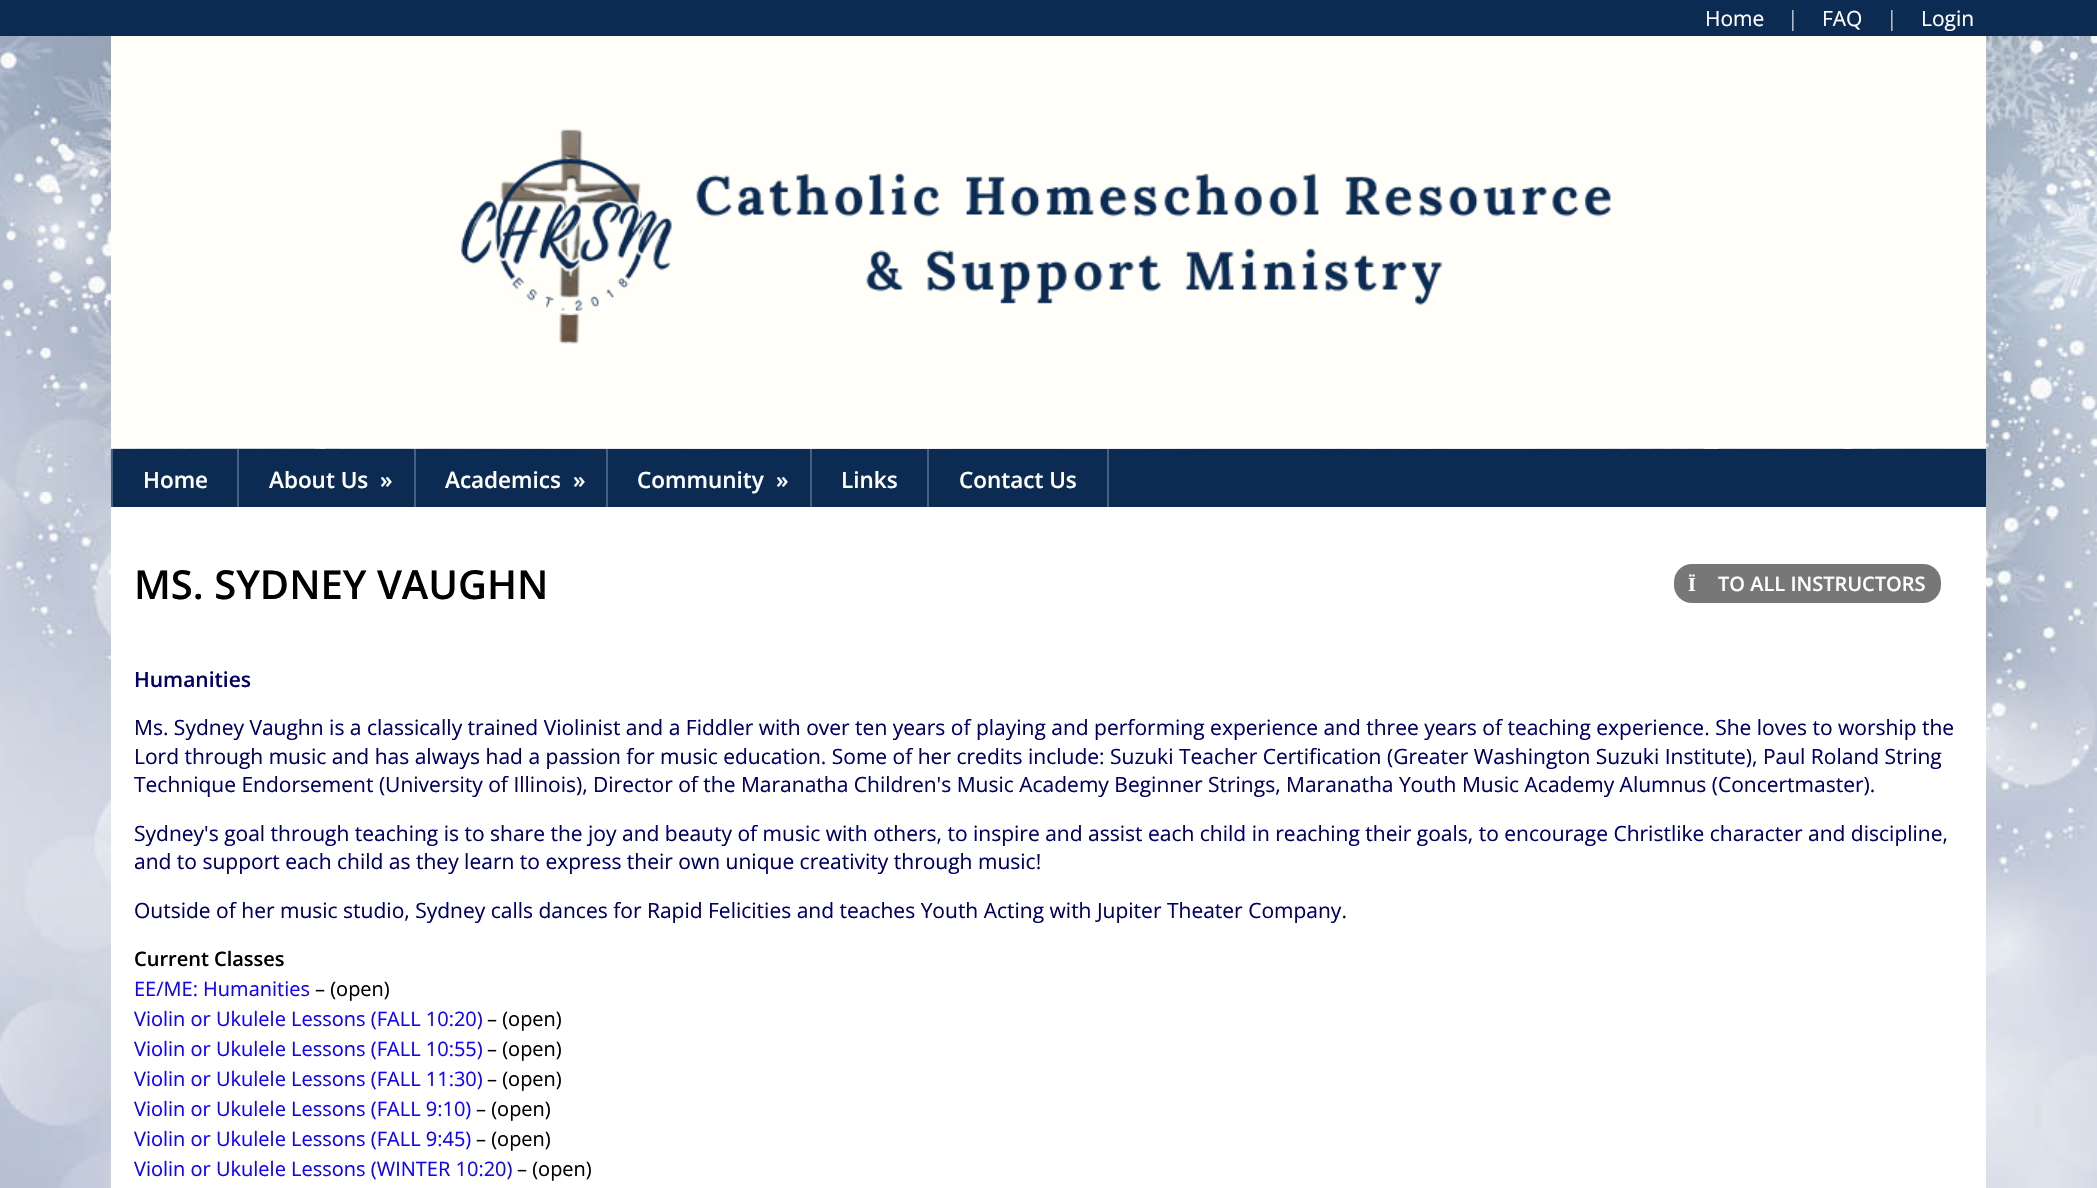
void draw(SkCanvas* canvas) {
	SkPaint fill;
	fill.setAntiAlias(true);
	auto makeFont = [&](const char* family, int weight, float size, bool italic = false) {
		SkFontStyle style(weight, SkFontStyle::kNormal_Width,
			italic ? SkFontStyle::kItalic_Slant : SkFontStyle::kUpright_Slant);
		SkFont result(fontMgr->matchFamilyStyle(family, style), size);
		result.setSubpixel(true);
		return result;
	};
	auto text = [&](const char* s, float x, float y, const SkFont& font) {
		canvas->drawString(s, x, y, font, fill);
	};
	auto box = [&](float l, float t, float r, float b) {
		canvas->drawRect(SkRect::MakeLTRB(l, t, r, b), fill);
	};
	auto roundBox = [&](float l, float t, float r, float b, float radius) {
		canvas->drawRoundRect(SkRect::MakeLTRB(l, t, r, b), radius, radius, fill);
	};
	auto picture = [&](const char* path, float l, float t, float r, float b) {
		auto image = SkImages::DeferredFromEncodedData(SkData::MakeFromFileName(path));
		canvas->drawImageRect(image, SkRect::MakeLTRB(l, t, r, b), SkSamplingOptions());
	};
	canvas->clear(0xFFFFFFFF);
	picture("image0.png", 0, 36, 2097, 1188);
	fill.setColor(0xFF0B2B53);
	box(0, 0, 2097, 36);
	picture("image1.png", 111, 36, 1986, 449);
	box(113, 449, 1986, 507);
	fill.setColor(0xFF48607E);
	box(111, 449, 113, 507);
	box(237, 449, 239, 507);
	box(414, 449, 416, 507);
	box(606, 449, 608, 507);
	box(810, 449, 812, 507);
	box(927, 449, 929, 507);
	box(1107, 449, 1109, 507);
	fill.setColor(0xFFFFFFFF);
	box(111, 507, 1986, 1188);
	fill.setColor(0xFF777777);
	roundBox(1674, 564, 1941, 603, 18);
	auto font1 = makeFont("Open Sans", 400, 21);
	fill.setColor(0xFFFFFFFF);
	text("Home", 1705, 26, font1);
	fill.setColor(0xFFB6BFC8);
	text("|", 1787, 26, font1);
	fill.setColor(0xFFFFFFFF);
	text("FAQ", 1822, 26, font1);
	fill.setColor(0xFFB6BFC8);
	text("|", 1886, 26, font1);
	fill.setColor(0xFFFFFFFF);
	text("Login", 1921, 26, font1);
	auto font2 = makeFont("Open Sans", 600, 22.5f);
	text("Home", 143, 488, font2);
	text("About Us", 269, 488, font2);
	text("»", 380, 488, font2);
	text("Academics", 445, 488, font2);
	text("»", 573, 488, font2);
	text("Community", 637, 488, font2);
	text("»", 776, 488, font2);
	text("Links", 841, 488, font2);
	text("Contact Us", 959, 488, font2);
	auto font3 = makeFont("Open Sans", 600, 40);
	fill.setColor(0xFF000000);
	text("MS. SYDNEY VAUGHN", 134, 599, font3);
	auto font4 = makeFont("Liberation Serif", 700, 20);
	fill.setColor(0xFFFFFFFF);
	text("Ï", 1688, 591, font4);
	auto font5 = makeFont("Open Sans", 600, 20);
	text("TO ALL INSTRUCTORS", 1718, 591, font5);
	auto font6 = makeFont("Open Sans", 600, 21);
	fill.setColor(0xFF000066);
	text("Humanities", 134, 687, font6);
	text("Ms. Sydney Vaughn is a classically trained Violinist and a Fiddler with over ten years of playing and performing experience and three years of teaching experience. She loves to worship the", 134, 735, font1);
	text("Lord through music and has always had a passion for music education. Some of her credits include: Suzuki Teacher Certification (Greater Washington Suzuki Institute), Paul Roland String", 134, 764, font1);
	text("Technique Endorsement (University of Illinois), Director of the Maranatha Children's Music Academy Beginner Strings, Maranatha Youth Music Academy Alumnus (Concertmaster).", 134, 792, font1);
	text("Sydney's goal through teaching is to share the joy and beauty of music with others, to inspire and assist each child in reaching their goals, to encourage Christlike character and discipline,", 134, 841, font1);
	text("and to support each child as they learn to express their own unique creativity through music!", 134, 869, font1);
	text("Outside of her music studio, Sydney calls dances for Rapid Felicities and teaches Youth Acting with Jupiter Theater Company.", 134, 918, font1);
	fill.setColor(0xFF000000);
	text("Current Classes", 134, 966, font5);
	auto font7 = makeFont("Open Sans", 400, 20);
	fill.setColor(0xFF1003FF);
	text("EE/ME: Humanities", 134, 996, font7);
	fill.setColor(0xFF000000);
	text("– (open)", 315, 996, font7);
	fill.setColor(0xFF1003FF);
	text("Violin or Ukulele Lessons (FALL 10:20)", 134, 1026, font7);
	fill.setColor(0xFF000000);
	text("– (open)", 487, 1026, font7);
	fill.setColor(0xFF1003FF);
	text("Violin or Ukulele Lessons (FALL 10:55)", 134, 1056, font7);
	fill.setColor(0xFF000000);
	text("– (open)", 487, 1056, font7);
	fill.setColor(0xFF1003FF);
	text("Violin or Ukulele Lessons (FALL 11:30)", 134, 1086, font7);
	fill.setColor(0xFF000000);
	text("– (open)", 487, 1086, font7);
	fill.setColor(0xFF1003FF);
	text("Violin or Ukulele Lessons (FALL 9:10)", 134, 1116, font7);
	fill.setColor(0xFF000000);
	text("– (open)", 476, 1116, font7);
	fill.setColor(0xFF1003FF);
	text("Violin or Ukulele Lessons (FALL 9:45)", 134, 1146, font7);
	fill.setColor(0xFF000000);
	text("– (open)", 476, 1146, font7);
	fill.setColor(0xFF1003FF);
	text("Violin or Ukulele Lessons (WINTER 10:20)", 134, 1176, font7);
	fill.setColor(0xFF000000);
	text("– (open)", 517, 1176, font7);
}
